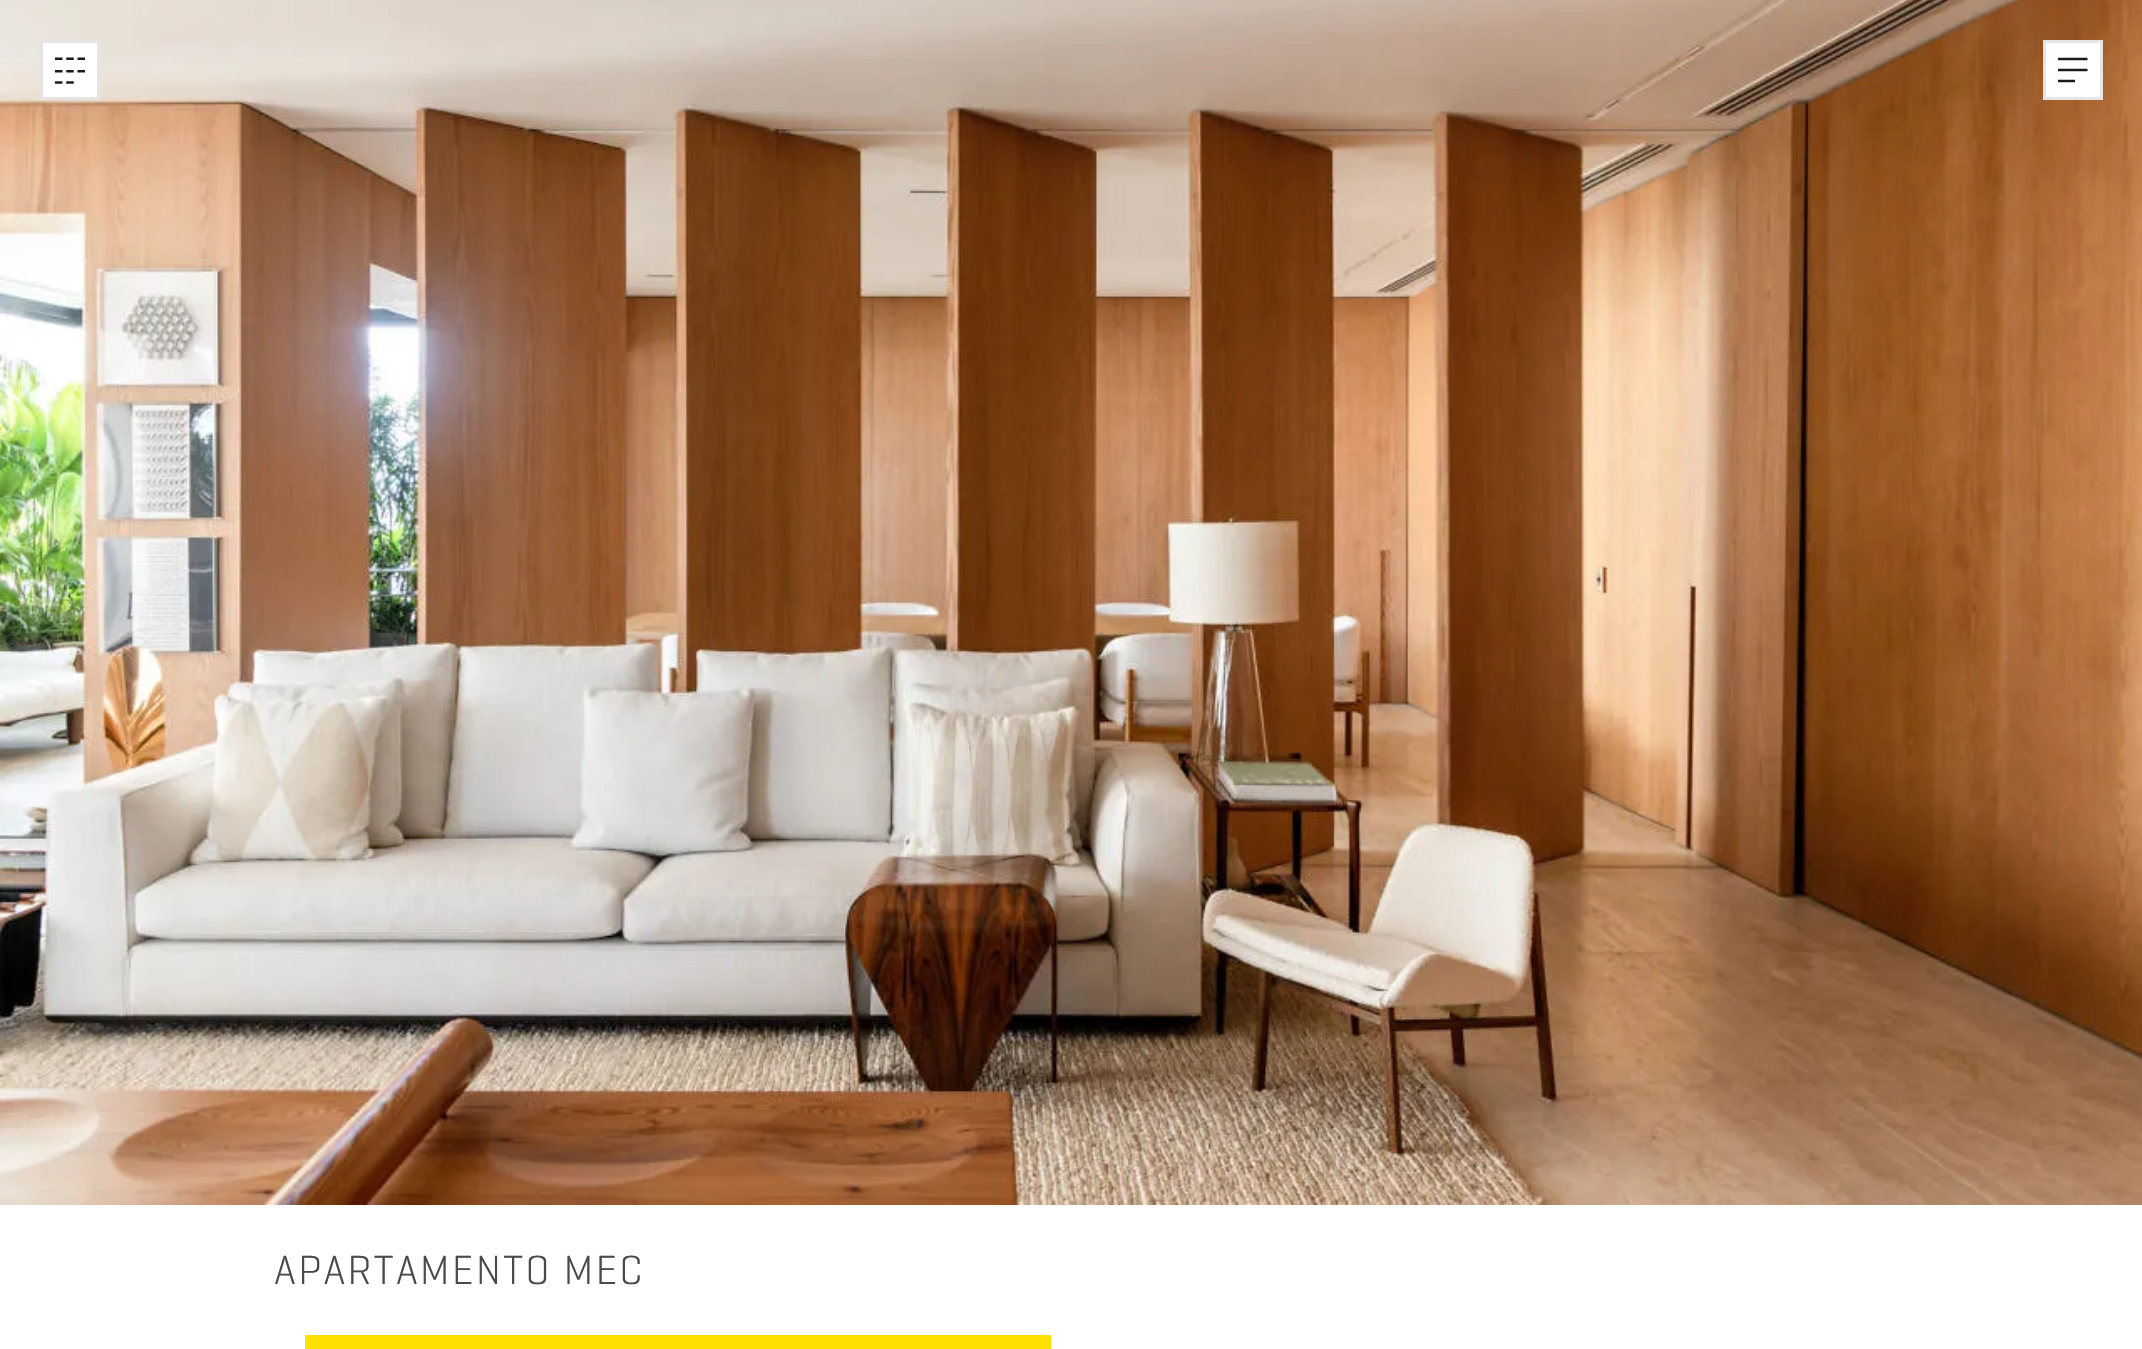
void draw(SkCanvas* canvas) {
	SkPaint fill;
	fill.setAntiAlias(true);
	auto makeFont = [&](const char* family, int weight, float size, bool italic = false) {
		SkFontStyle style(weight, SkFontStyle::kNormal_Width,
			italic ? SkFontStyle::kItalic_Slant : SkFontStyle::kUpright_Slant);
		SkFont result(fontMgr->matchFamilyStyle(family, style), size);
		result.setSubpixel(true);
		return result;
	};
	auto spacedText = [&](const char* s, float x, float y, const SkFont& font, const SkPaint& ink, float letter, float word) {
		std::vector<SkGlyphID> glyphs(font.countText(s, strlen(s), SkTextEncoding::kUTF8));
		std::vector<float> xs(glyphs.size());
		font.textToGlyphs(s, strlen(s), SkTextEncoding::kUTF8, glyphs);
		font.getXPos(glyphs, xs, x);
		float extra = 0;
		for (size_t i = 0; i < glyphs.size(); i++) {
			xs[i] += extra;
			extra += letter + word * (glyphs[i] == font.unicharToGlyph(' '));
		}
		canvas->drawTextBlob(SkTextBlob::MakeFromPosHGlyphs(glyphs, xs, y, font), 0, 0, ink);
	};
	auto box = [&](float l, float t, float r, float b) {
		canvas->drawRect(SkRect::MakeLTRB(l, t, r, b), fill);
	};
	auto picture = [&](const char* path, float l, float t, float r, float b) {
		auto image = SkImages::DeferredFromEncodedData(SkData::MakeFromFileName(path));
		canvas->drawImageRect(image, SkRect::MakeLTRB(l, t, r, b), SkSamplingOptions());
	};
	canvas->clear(0xFFFFFFFF);
	picture("image1.png", 0, 0, 2142, 1205);
	fill.setColor(0xFFFFFFFF);
	canvas->drawRect(SkRect::MakeLTRB(41.5f, 41.5f, 98.5f, 98.5f), fill);
	fill.setStyle(SkPaint::kStroke_Style);
	fill.setStrokeWidth(3);
	fill.setColor(0xFFE5E5E5);
	canvas->drawRect(SkRect::MakeLTRB(41.5f, 41.5f, 98.5f, 98.5f), fill);
	picture("image0.png", 55, 57, 85, 84);
	fill.setStyle(SkPaint::kFill_Style);
	fill.setColor(0xFFFFFFFF);
	canvas->drawRect(SkRect::MakeLTRB(2044.5f, 41.5f, 2101.5f, 98.5f), fill);
	fill.setStyle(SkPaint::kStroke_Style);
	fill.setColor(0xFFE5E5E5);
	canvas->drawRect(SkRect::MakeLTRB(2044.5f, 41.5f, 2101.5f, 98.5f), fill);
	canvas->save();
	canvas->clipRect(SkRect::MakeLTRB(2058, 55, 2088, 85));
	fill.setStrokeWidth(2.5f);
	fill.setColor(0xFF1A1A1A);
	canvas->drawPath(SkPathBuilder().moveTo(2057.5f, 70).lineTo(2087.5f, 70).moveTo(2057.5f, 81).lineTo(2075, 81).moveTo(2057.5f, 59).lineTo(2087.5f, 59).detach(), fill);
	canvas->restore();
	fill.setStyle(SkPaint::kFill_Style);
	fill.setColor(0xFFFFE100);
	box(305, 1335, 1051, 1349);
	auto font1 = makeFont("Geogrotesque", 300, 41.5f);
	fill.setColor(0xFF4A4A4A);
	spacedText("APARTAMENTO MEC", 274, 1284, font1, fill, 2.1f, 0);
}
